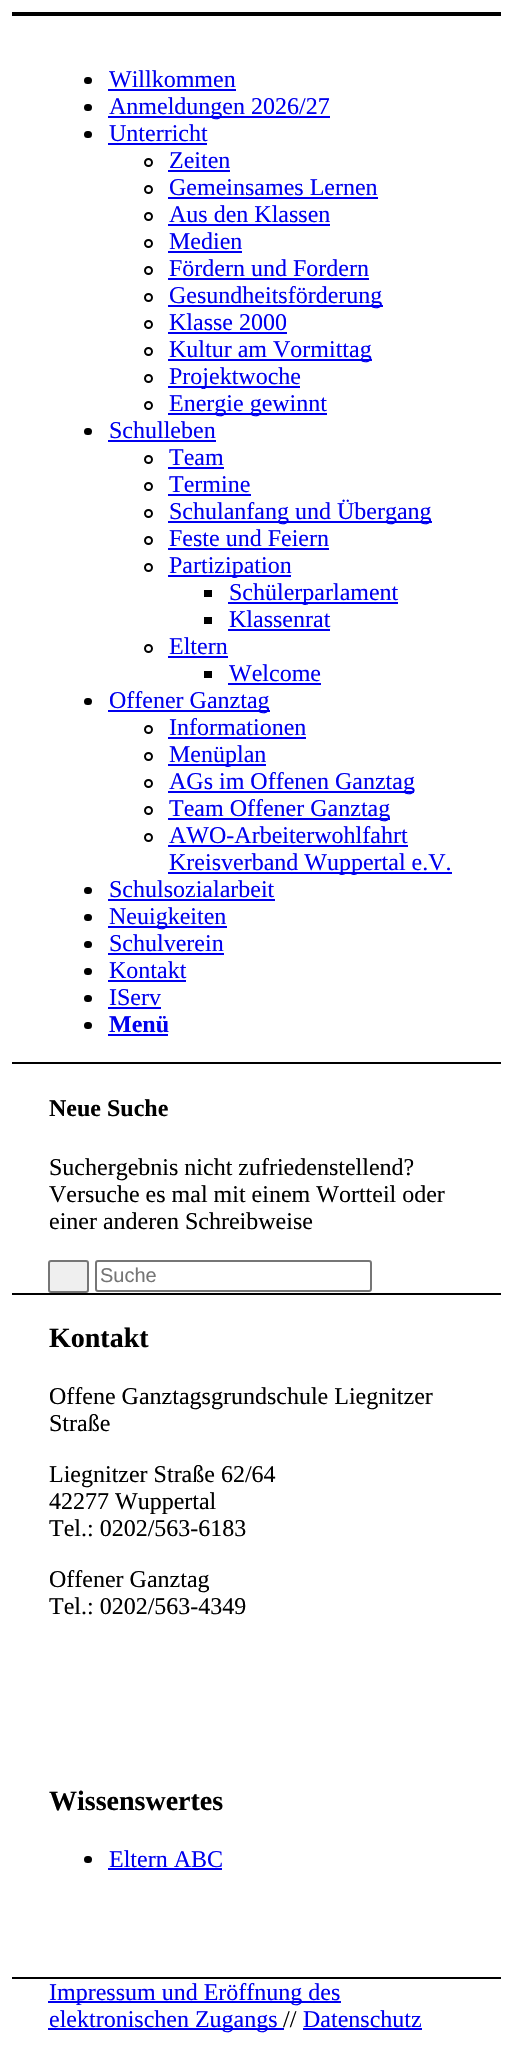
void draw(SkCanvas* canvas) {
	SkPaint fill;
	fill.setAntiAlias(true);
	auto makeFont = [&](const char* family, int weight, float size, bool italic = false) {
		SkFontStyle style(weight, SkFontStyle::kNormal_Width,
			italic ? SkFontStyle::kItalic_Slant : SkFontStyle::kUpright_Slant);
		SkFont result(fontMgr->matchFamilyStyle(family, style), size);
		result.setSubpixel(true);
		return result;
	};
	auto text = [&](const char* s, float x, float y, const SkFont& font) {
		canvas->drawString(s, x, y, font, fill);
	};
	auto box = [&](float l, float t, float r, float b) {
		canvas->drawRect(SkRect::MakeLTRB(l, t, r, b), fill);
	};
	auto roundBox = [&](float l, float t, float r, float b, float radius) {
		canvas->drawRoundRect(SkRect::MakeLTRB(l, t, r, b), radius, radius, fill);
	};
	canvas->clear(0xFFFFFFFF);
	fill.setColor(0xFF000000);
	box(12, 12, 501, 16);
	roundBox(84, 77, 92, 84, 3.5f);
	fill.setColor(0xFF0000EE);
	box(108, 89, 236, 91);
	fill.setColor(0xFF000000);
	roundBox(84, 104, 92, 111, 3.5f);
	fill.setColor(0xFF0000EE);
	box(108, 116, 330, 118);
	fill.setColor(0xFF000000);
	roundBox(84, 131, 92, 138, 3.5f);
	fill.setColor(0xFF0000EE);
	box(108, 143, 207, 145);
	fill.setStyle(SkPaint::kStroke_Style);
	fill.setStrokeWidth(2);
	fill.setColor(0xFF000000);
	canvas->drawCircle(148.5f, 162.5f, 3.5f, fill);
	fill.setStyle(SkPaint::kFill_Style);
	fill.setColor(0xFF0000EE);
	box(168, 170, 230, 172);
	fill.setStyle(SkPaint::kStroke_Style);
	fill.setColor(0xFF000000);
	canvas->drawCircle(148.5f, 189.5f, 3.5f, fill);
	fill.setStyle(SkPaint::kFill_Style);
	fill.setColor(0xFF0000EE);
	box(168, 197, 378, 199);
	fill.setStyle(SkPaint::kStroke_Style);
	fill.setColor(0xFF000000);
	canvas->drawCircle(148.5f, 216.5f, 3.5f, fill);
	fill.setStyle(SkPaint::kFill_Style);
	fill.setColor(0xFF0000EE);
	box(168, 224, 330, 226);
	fill.setStyle(SkPaint::kStroke_Style);
	fill.setColor(0xFF000000);
	canvas->drawCircle(148.5f, 243.5f, 3.5f, fill);
	fill.setStyle(SkPaint::kFill_Style);
	fill.setColor(0xFF0000EE);
	box(168, 251, 242, 253);
	fill.setStyle(SkPaint::kStroke_Style);
	fill.setColor(0xFF000000);
	canvas->drawCircle(148.5f, 270.5f, 3.5f, fill);
	fill.setStyle(SkPaint::kFill_Style);
	fill.setColor(0xFF0000EE);
	box(168, 278, 369, 280);
	fill.setStyle(SkPaint::kStroke_Style);
	fill.setColor(0xFF000000);
	canvas->drawCircle(148.5f, 297.5f, 3.5f, fill);
	fill.setStyle(SkPaint::kFill_Style);
	fill.setColor(0xFF0000EE);
	box(168, 305, 383, 307);
	fill.setStyle(SkPaint::kStroke_Style);
	fill.setColor(0xFF000000);
	canvas->drawCircle(148.5f, 324.5f, 3.5f, fill);
	fill.setStyle(SkPaint::kFill_Style);
	fill.setColor(0xFF0000EE);
	box(168, 332, 287, 334);
	fill.setStyle(SkPaint::kStroke_Style);
	fill.setColor(0xFF000000);
	canvas->drawCircle(148.5f, 351.5f, 3.5f, fill);
	fill.setStyle(SkPaint::kFill_Style);
	fill.setColor(0xFF0000EE);
	box(168, 359, 372, 361);
	fill.setStyle(SkPaint::kStroke_Style);
	fill.setColor(0xFF000000);
	canvas->drawCircle(148.5f, 378.5f, 3.5f, fill);
	fill.setStyle(SkPaint::kFill_Style);
	fill.setColor(0xFF0000EE);
	box(168, 386, 300, 388);
	fill.setStyle(SkPaint::kStroke_Style);
	fill.setColor(0xFF000000);
	canvas->drawCircle(148.5f, 405.5f, 3.5f, fill);
	fill.setStyle(SkPaint::kFill_Style);
	fill.setColor(0xFF0000EE);
	box(168, 413, 327, 415);
	fill.setColor(0xFF000000);
	roundBox(84, 428, 92, 435, 3.5f);
	fill.setColor(0xFF0000EE);
	box(108, 440, 216, 442);
	fill.setStyle(SkPaint::kStroke_Style);
	fill.setColor(0xFF000000);
	canvas->drawCircle(148.5f, 459.5f, 3.5f, fill);
	fill.setStyle(SkPaint::kFill_Style);
	fill.setColor(0xFF0000EE);
	box(168, 467, 224, 469);
	fill.setStyle(SkPaint::kStroke_Style);
	fill.setColor(0xFF000000);
	canvas->drawCircle(148.5f, 486.5f, 3.5f, fill);
	fill.setStyle(SkPaint::kFill_Style);
	fill.setColor(0xFF0000EE);
	box(168, 494, 251, 496);
	fill.setStyle(SkPaint::kStroke_Style);
	fill.setColor(0xFF000000);
	canvas->drawCircle(148.5f, 513.5f, 3.5f, fill);
	fill.setStyle(SkPaint::kFill_Style);
	fill.setColor(0xFF0000EE);
	box(168, 521, 432, 523);
	fill.setStyle(SkPaint::kStroke_Style);
	fill.setColor(0xFF000000);
	canvas->drawCircle(148.5f, 540.5f, 3.5f, fill);
	fill.setStyle(SkPaint::kFill_Style);
	fill.setColor(0xFF0000EE);
	box(168, 548, 329, 550);
	fill.setStyle(SkPaint::kStroke_Style);
	fill.setColor(0xFF000000);
	canvas->drawCircle(148.5f, 567.5f, 3.5f, fill);
	fill.setStyle(SkPaint::kFill_Style);
	fill.setColor(0xFF0000EE);
	box(168, 575, 291, 577);
	fill.setColor(0xFF000000);
	box(204, 590, 212, 597);
	fill.setColor(0xFF0000EE);
	box(228, 602, 398, 604);
	fill.setColor(0xFF000000);
	box(204, 617, 212, 624);
	fill.setColor(0xFF0000EE);
	box(228, 629, 330, 631);
	fill.setStyle(SkPaint::kStroke_Style);
	fill.setColor(0xFF000000);
	canvas->drawCircle(148.5f, 648.5f, 3.5f, fill);
	fill.setStyle(SkPaint::kFill_Style);
	fill.setColor(0xFF0000EE);
	box(168, 656, 228, 658);
	fill.setColor(0xFF000000);
	box(204, 671, 212, 678);
	fill.setColor(0xFF0000EE);
	box(228, 683, 321, 685);
	fill.setColor(0xFF000000);
	roundBox(84, 698, 92, 705, 3.5f);
	fill.setColor(0xFF0000EE);
	box(108, 710, 270, 712);
	fill.setStyle(SkPaint::kStroke_Style);
	fill.setColor(0xFF000000);
	canvas->drawCircle(148.5f, 729.5f, 3.5f, fill);
	fill.setStyle(SkPaint::kFill_Style);
	fill.setColor(0xFF0000EE);
	box(168, 737, 306, 739);
	fill.setStyle(SkPaint::kStroke_Style);
	fill.setColor(0xFF000000);
	canvas->drawCircle(148.5f, 756.5f, 3.5f, fill);
	fill.setStyle(SkPaint::kFill_Style);
	fill.setColor(0xFF0000EE);
	box(168, 764, 266, 766);
	fill.setStyle(SkPaint::kStroke_Style);
	fill.setColor(0xFF000000);
	canvas->drawCircle(148.5f, 783.5f, 3.5f, fill);
	fill.setStyle(SkPaint::kFill_Style);
	fill.setColor(0xFF0000EE);
	box(168, 791, 414, 793);
	fill.setStyle(SkPaint::kStroke_Style);
	fill.setColor(0xFF000000);
	canvas->drawCircle(148.5f, 810.5f, 3.5f, fill);
	fill.setStyle(SkPaint::kFill_Style);
	fill.setColor(0xFF0000EE);
	box(168, 818, 390, 820);
	fill.setStyle(SkPaint::kStroke_Style);
	fill.setColor(0xFF000000);
	canvas->drawCircle(148.5f, 837.5f, 3.5f, fill);
	fill.setStyle(SkPaint::kFill_Style);
	fill.setColor(0xFF0000EE);
	box(168, 845, 408, 847);
	box(168, 872, 452, 874);
	fill.setColor(0xFF000000);
	roundBox(84, 887, 92, 894, 3.5f);
	fill.setColor(0xFF0000EE);
	box(108, 899, 275, 901);
	fill.setColor(0xFF000000);
	roundBox(84, 914, 92, 921, 3.5f);
	fill.setColor(0xFF0000EE);
	box(108, 926, 227, 928);
	fill.setColor(0xFF000000);
	roundBox(84, 941, 92, 948, 3.5f);
	fill.setColor(0xFF0000EE);
	box(108, 953, 224, 955);
	fill.setColor(0xFF000000);
	roundBox(84, 968, 92, 975, 3.5f);
	fill.setColor(0xFF0000EE);
	box(108, 980, 186, 982);
	fill.setColor(0xFF000000);
	roundBox(84, 995, 92, 1002, 3.5f);
	fill.setColor(0xFF0000EE);
	box(108, 1007, 161, 1009);
	fill.setColor(0xFF000000);
	roundBox(84, 1022, 92, 1029, 3.5f);
	fill.setColor(0xFF0000EE);
	box(108, 1034, 168, 1036);
	fill.setColor(0xFF000000);
	box(12, 1062, 501, 1064);
	fill.setColor(0xFFEFEFEF);
	canvas->drawRoundRect(SkRect::MakeLTRB(49, 1261, 88, 1292), 2, 2, fill);
	fill.setStyle(SkPaint::kStroke_Style);
	fill.setColor(0xFF767676);
	canvas->drawRoundRect(SkRect::MakeLTRB(49, 1261, 88, 1292), 2, 2, fill);
	canvas->drawRoundRect(SkRect::MakeLTRB(96, 1261, 371, 1291), 2, 2, fill);
	fill.setStyle(SkPaint::kFill_Style);
	fill.setColor(0xFF000000);
	box(12, 1293, 501, 1295);
	roundBox(84, 1856, 92, 1863, 3.5f);
	fill.setColor(0xFF0000EE);
	box(108, 1868, 222, 1870);
	fill.setColor(0xFF000000);
	box(12, 1977, 501, 1979);
	fill.setColor(0xFF0000EE);
	box(48, 2001, 341, 2003);
	box(48, 2028, 284, 2030);
	box(303, 2028, 422, 2030);
	auto font1 = makeFont("Liberation Serif", 400, 24);
	text("Willkommen", 109, 87, font1);
	text("Anmeldungen 2026/27", 109, 114, font1);
	text("Unterricht", 109, 141, font1);
	text("Zeiten", 169, 168, font1);
	text("Gemeinsames Lernen", 169, 195, font1);
	text("Aus den Klassen", 169, 222, font1);
	text("Medien", 169, 249, font1);
	text("Fördern und Fordern", 169, 276, font1);
	text("Gesundheitsförderung", 169, 303, font1);
	text("Klasse 2000", 169, 330, font1);
	text("Kultur am Vormittag", 169, 357, font1);
	text("Projektwoche", 169, 384, font1);
	text("Energie gewinnt", 169, 411, font1);
	text("Schulleben", 109, 438, font1);
	text("Team", 169, 465, font1);
	text("Termine", 169, 492, font1);
	text("Schulanfang und Übergang", 169, 519, font1);
	text("Feste und Feiern", 169, 546, font1);
	text("Partizipation", 169, 573, font1);
	text("Schülerparlament", 229, 600, font1);
	text("Klassenrat", 229, 627, font1);
	text("Eltern", 169, 654, font1);
	text("Welcome", 229, 681, font1);
	text("Offener Ganztag", 109, 708, font1);
	text("Informationen", 169, 735, font1);
	text("Menüplan", 169, 762, font1);
	text("AGs im Offenen Ganztag", 169, 789, font1);
	text("Team Offener Ganztag", 169, 816, font1);
	text("AWO-Arbeiterwohlfahrt", 169, 843, font1);
	text("Kreisverband Wuppertal e.V.", 169, 870, font1);
	text("Schulsozialarbeit", 109, 897, font1);
	text("Neuigkeiten", 109, 924, font1);
	text("Schulverein", 109, 951, font1);
	text("Kontakt", 109, 978, font1);
	text("IServ", 109, 1005, font1);
	auto font2 = makeFont("Liberation Serif", 700, 24);
	text("Menü", 109, 1032, font2);
	fill.setColor(0xFF000000);
	text("Neue Suche", 49, 1116, font2);
	text("Suchergebnis nicht zufriedenstellend?", 49, 1175, font1);
	text("Versuche es mal mit einem Wortteil oder", 49, 1202, font1);
	text("einer anderen Schreibweise", 49, 1229, font1);
	auto font3 = makeFont("Liberation Sans", 400, 20);
	fill.setColor(0xFF757575);
	text("Suche", 100, 1282, font3);
	auto font4 = makeFont("Liberation Serif", 700, 28);
	fill.setColor(0xFF000000);
	text("Kontakt", 49, 1347, font4);
	text("Offene Ganztagsgrundschule Liegnitzer", 49, 1404, font1);
	text("Straße", 49, 1431, font1);
	text("Liegnitzer Straße 62/64", 49, 1482, font1);
	text("42277 Wuppertal", 49, 1509, font1);
	text("Tel.: 0202/563-6183", 49, 1536, font1);
	text("Offener Ganztag", 49, 1587, font1);
	text("Tel.: 0202/563-4349", 49, 1614, font1);
	text("Wissenswertes", 49, 1810, font4);
	fill.setColor(0xFF0000EE);
	text("Eltern ABC", 109, 1867, font1);
	text("Impressum und Eröffnung des", 49, 2000, font1);
	text("elektronischen Zugangs", 49, 2027, font1);
	fill.setColor(0xFF000000);
	text("//", 283, 2027, font1);
	fill.setColor(0xFF0000EE);
	text("Datenschutz", 303, 2027, font1);
}
